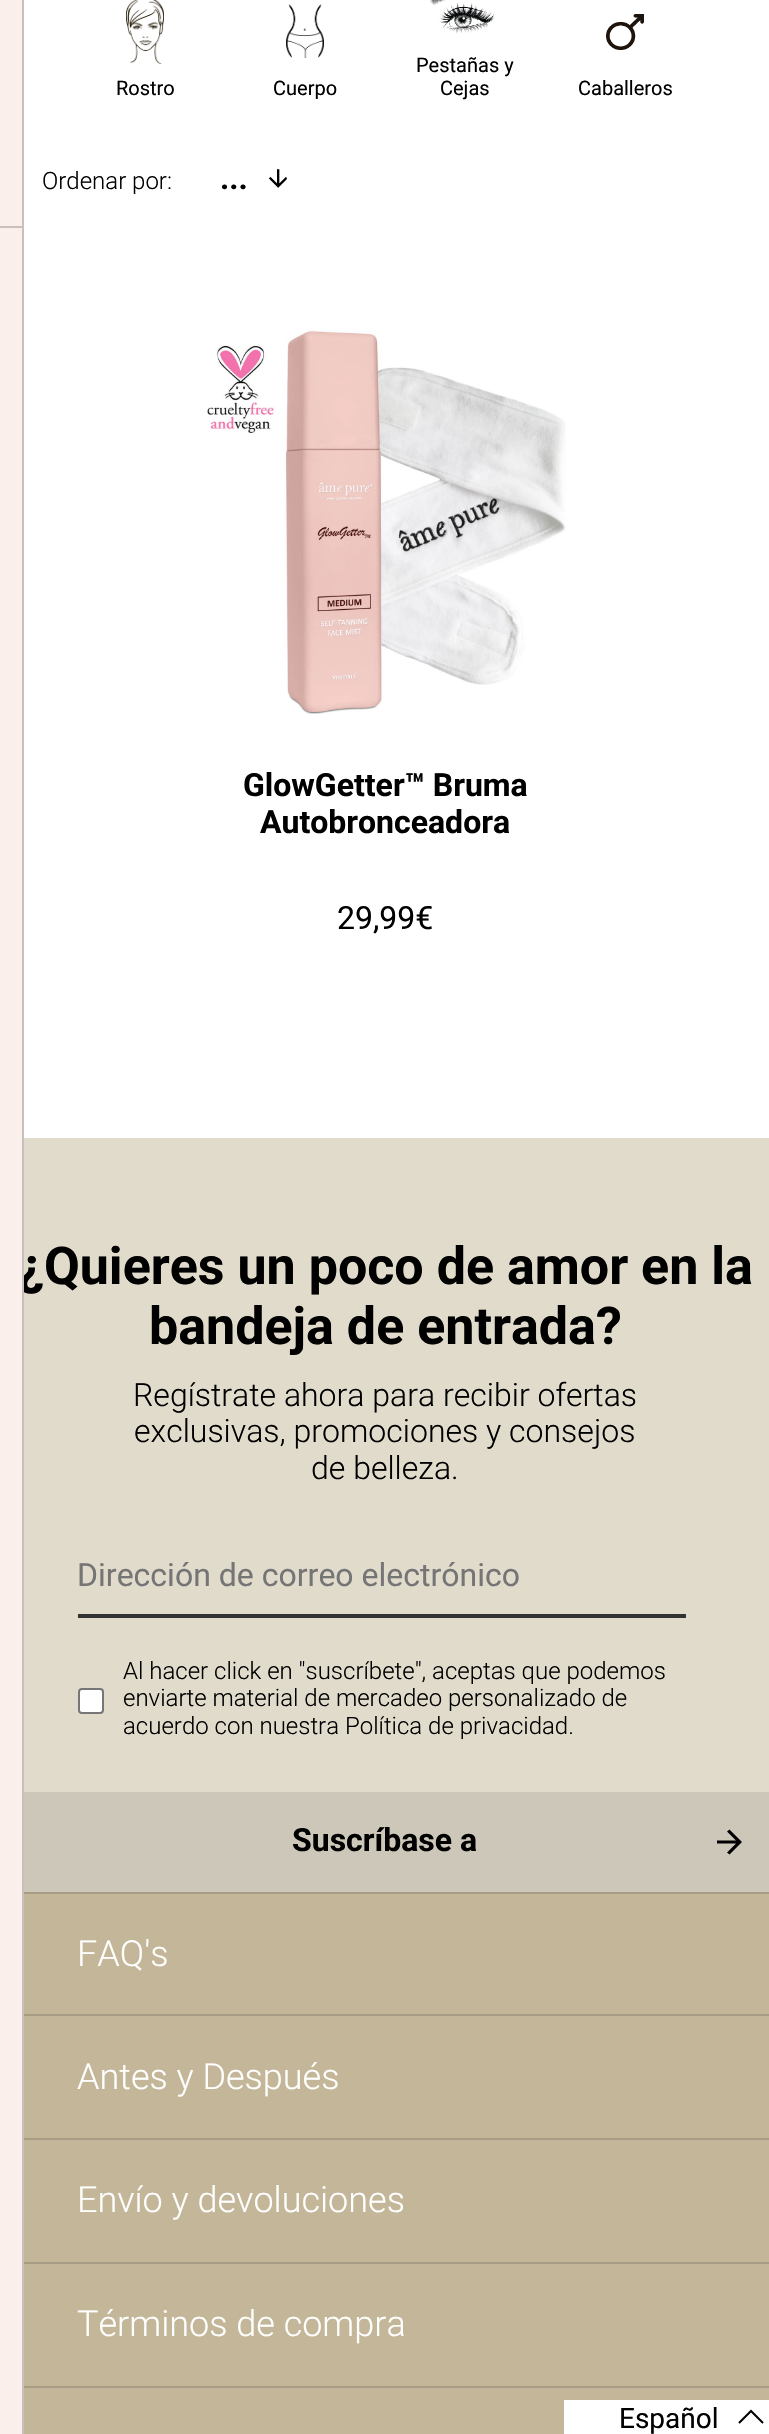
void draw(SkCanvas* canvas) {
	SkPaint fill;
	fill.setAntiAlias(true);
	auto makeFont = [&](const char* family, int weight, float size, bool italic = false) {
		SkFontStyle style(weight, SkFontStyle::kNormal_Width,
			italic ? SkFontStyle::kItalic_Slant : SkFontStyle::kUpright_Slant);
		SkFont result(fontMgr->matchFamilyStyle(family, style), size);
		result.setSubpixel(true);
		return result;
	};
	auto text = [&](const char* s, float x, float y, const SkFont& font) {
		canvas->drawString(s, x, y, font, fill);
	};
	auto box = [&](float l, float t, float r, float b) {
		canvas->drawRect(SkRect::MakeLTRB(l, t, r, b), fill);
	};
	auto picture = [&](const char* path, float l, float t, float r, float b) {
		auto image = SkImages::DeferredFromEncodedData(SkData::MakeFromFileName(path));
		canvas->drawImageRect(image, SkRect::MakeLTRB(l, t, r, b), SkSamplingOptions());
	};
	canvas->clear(0xFFFFFFFF);
	picture("image0.png", 126, 0, 164, 64);
	picture("image1.png", 286, 4, 324, 58);
	picture("image2.png", 430, 0, 495, 34);
	picture("image3.png", 606, 14, 644, 50);
	picture("image4.png", 268, 169, 287, 188);
	picture("image5.png", 207, 330, 566, 714);
	fill.setColor(0xFFE1DBCC);
	box(24, 1138, 769, 1792);
	fill.setColor(0xFF333333);
	box(78, 1614, 686, 1618);
	fill.setColor(0xFFFFFFFF);
	canvas->drawRoundRect(SkRect::MakeLTRB(79, 1689, 103, 1713), 3, 3, fill);
	fill.setStyle(SkPaint::kStroke_Style);
	fill.setStrokeWidth(2);
	fill.setColor(0xFF767676);
	canvas->drawRoundRect(SkRect::MakeLTRB(79, 1689, 103, 1713), 3, 3, fill);
	fill.setStyle(SkPaint::kFill_Style);
	fill.setColor(0xFFCDC7B9);
	box(24, 1792, 769, 1892);
	fill.setColor(0xFF000000);
	canvas->drawPath(SkPathBuilder().moveTo(729.5f, 1829.5f).lineTo(727, 1831.5f).lineTo(736, 1840.5f).lineTo(717, 1840.5f).lineTo(717, 1843.5f).lineTo(736, 1843.5f).lineTo(727, 1852.5f).lineTo(729.5f, 1854.5f).lineTo(742, 1842).close().detach(), fill);
	fill.setColor(0xFFC4B799);
	box(24, 1894, 769, 2434);
	fill.setColor(0xFFA79D85);
	box(24, 1892, 769, 1894);
	box(24, 2014, 769, 2016);
	box(24, 2138, 769, 2140);
	box(24, 2262, 769, 2264);
	box(24, 2386, 769, 2388);
	fill.setColor(0xFFFFFFFF);
	box(564, 2400, 769, 2434);
	fill.setStyle(SkPaint::kStroke_Style);
	fill.setColor(0xFF000000);
	canvas->drawPath(SkPathBuilder().moveTo(763, 2423).lineTo(751, 2411).lineTo(739, 2423).detach(), fill);
	auto font1 = makeFont("Roboto", 400, 20);
	fill.setStyle(SkPaint::kFill_Style);
	text("Rostro", 116, 95, font1);
	text("Cuerpo", 273, 95, font1);
	text("Pestañas y", 416, 72, font1);
	text("Cejas", 440, 95, font1);
	text("Caballeros", 578, 95, font1);
	auto font2 = makeFont("Roboto", 300, 24);
	text("Ordenar por:", 42, 189, font2);
	auto font3 = makeFont("Roboto", 700, 32);
	text("...", 220, 189, font3);
	text("GlowGetter™ Bruma", 243, 796, font3);
	text("Autobronceadora", 260, 833, font3);
	auto font4 = makeFont("Roboto", 400, 32);
	text("29,99€", 337, 929, font4);
	auto font5 = makeFont("Roboto", 700, 52);
	text("¿Quieres un poco de amor en la", 18, 1284, font5);
	fill.setColor(0xFFFBEFEB);
	box(0, 0, 22, 2434);
	fill.setColor(0xFFC9BFBC);
	box(0, 226, 22, 228);
	box(22, 0, 24, 2434);
	fill.setColor(0xFF000000);
	text("bandeja de entrada?", 149, 1344, font5);
	auto font6 = makeFont("Roboto", 300, 32);
	text("Regístrate ahora para recibir ofertas", 133, 1406, font6);
	text("exclusivas, promociones y consejos", 134, 1442, font6);
	text("de belleza.", 311, 1479, font6);
	fill.setColor(0xFF757575);
	text("Dirección de correo electrónico", 77, 1586, font4);
	fill.setColor(0xFF000000);
	text("Al hacer click en \"suscríbete\", aceptas que podemos", 123, 1679, font2);
	text("enviarte material de mercadeo personalizado de", 123, 1706, font2);
	text("acuerdo con nuestra Política de privacidad.", 123, 1734, font2);
	text("Suscríbase a", 292, 1851, font3);
	auto font7 = makeFont("Roboto", 300, 36);
	fill.setColor(0xFFFFFFFF);
	text("FAQ's", 77, 1966, font7);
	text("Antes y Después", 77, 2089, font7);
	text("Envío y devoluciones", 77, 2212, font7);
	text("Términos de compra", 77, 2336, font7);
	auto font8 = makeFont("Roboto", 400, 28);
	fill.setColor(0xFF000000);
	text("Español", 619, 2428, font8);
}
